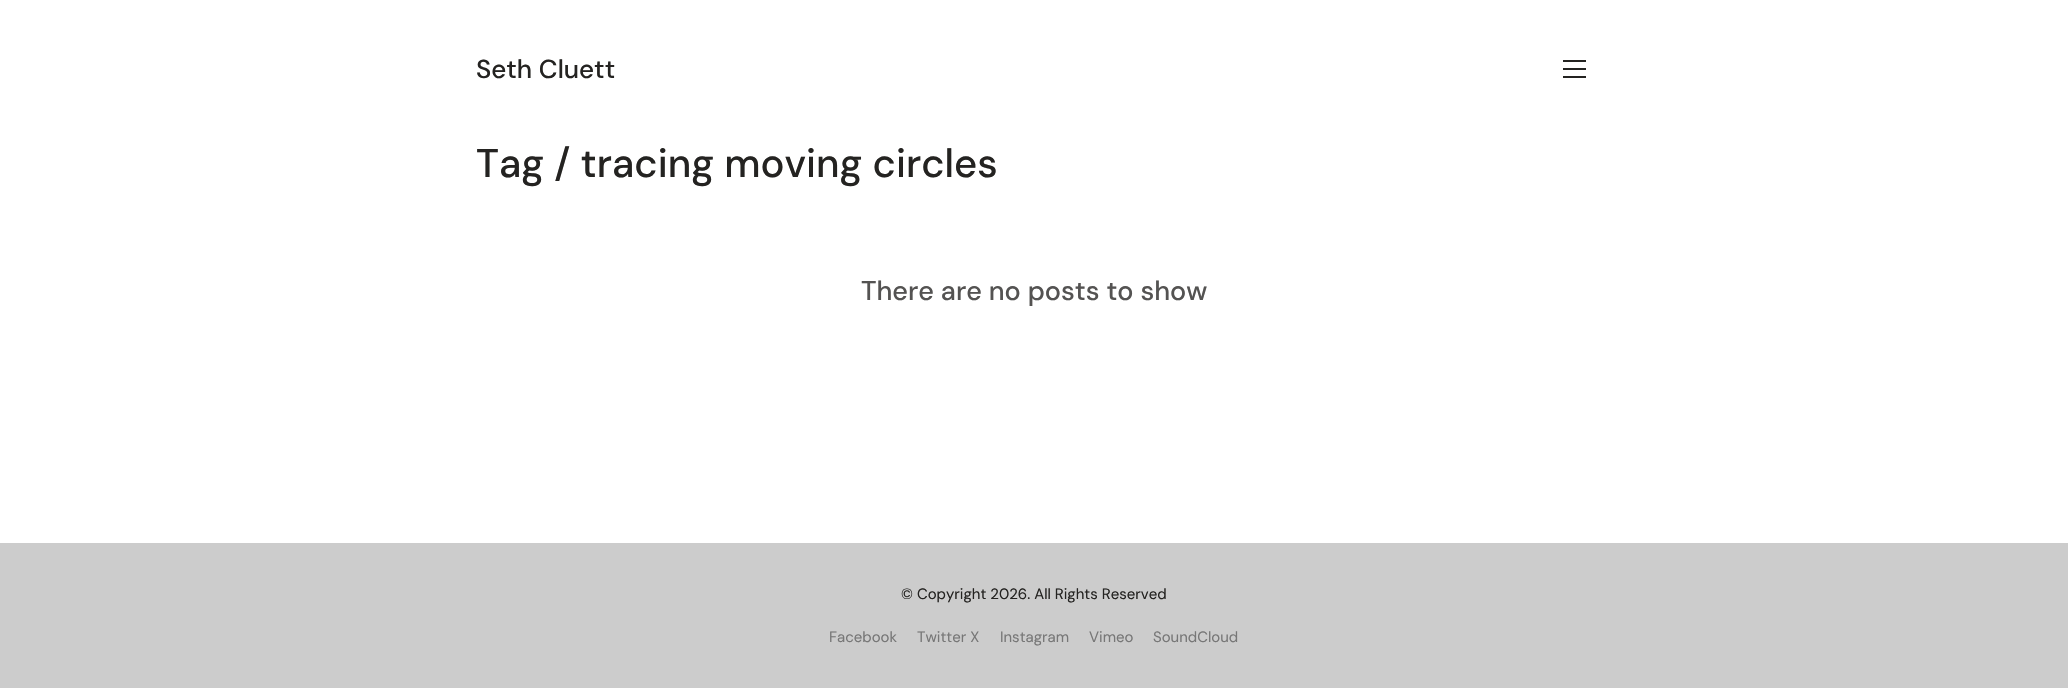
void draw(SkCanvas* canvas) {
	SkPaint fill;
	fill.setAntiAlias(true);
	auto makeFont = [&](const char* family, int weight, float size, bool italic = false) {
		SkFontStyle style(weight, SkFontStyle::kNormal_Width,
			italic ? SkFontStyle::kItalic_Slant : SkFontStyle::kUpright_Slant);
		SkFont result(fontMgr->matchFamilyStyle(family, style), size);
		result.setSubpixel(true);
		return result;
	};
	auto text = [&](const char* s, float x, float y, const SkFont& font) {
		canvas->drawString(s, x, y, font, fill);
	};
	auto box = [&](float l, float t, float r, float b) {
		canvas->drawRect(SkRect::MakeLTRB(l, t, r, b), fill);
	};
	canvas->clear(0xFFFFFFFF);
	fill.setColor(0xFF242321);
	box(1563, 60, 1586, 62);
	box(1563, 68, 1586, 70);
	box(1563, 76, 1586, 78);
	fill.setColor(0xFFCCCCCC);
	box(0, 543, 2068, 688);
	auto font1 = makeFont("DM Sans", 500, 26);
	fill.setColor(0xFF242321);
	text("Seth Cluett", 476, 78, font1);
	auto font2 = makeFont("DM Sans", 500, 40);
	text("Tag / tracing moving circles", 476, 177, font2);
	auto font3 = makeFont("DM Sans", 500, 27);
	fill.setColor(0xFF545352);
	text("There are no posts to show", 861, 300, font3);
	auto font4 = makeFont("DM Sans", 400, 15);
	fill.setColor(0xFF242321);
	text("© Copyright 2026. All Rights Reserved", 901, 599, font4);
	fill.setColor(0xFF777777);
	text("Facebook", 829, 642, font4);
	text("Twitter X", 917, 642, font4);
	text("Instagram", 1000, 642, font4);
	text("Vimeo", 1089, 642, font4);
	text("SoundCloud", 1153, 642, font4);
}
